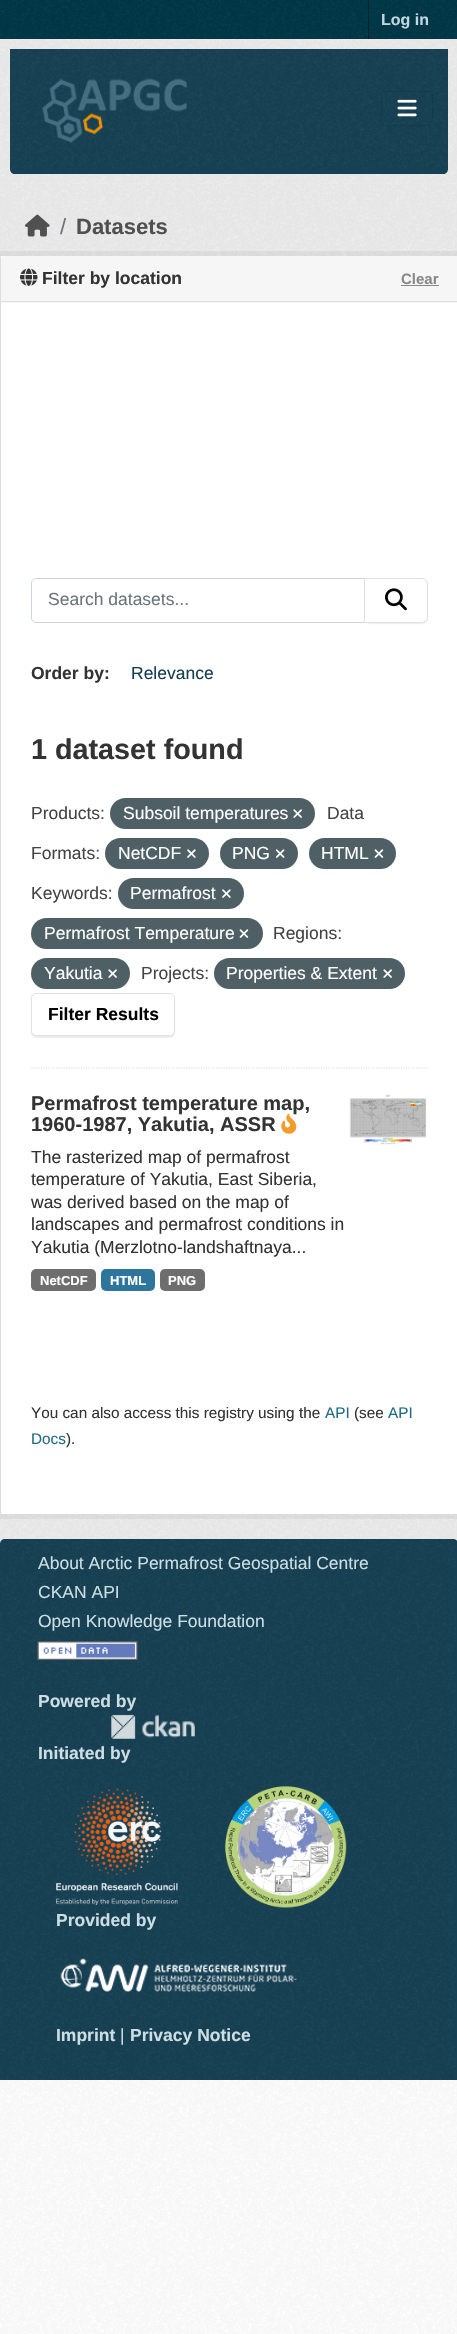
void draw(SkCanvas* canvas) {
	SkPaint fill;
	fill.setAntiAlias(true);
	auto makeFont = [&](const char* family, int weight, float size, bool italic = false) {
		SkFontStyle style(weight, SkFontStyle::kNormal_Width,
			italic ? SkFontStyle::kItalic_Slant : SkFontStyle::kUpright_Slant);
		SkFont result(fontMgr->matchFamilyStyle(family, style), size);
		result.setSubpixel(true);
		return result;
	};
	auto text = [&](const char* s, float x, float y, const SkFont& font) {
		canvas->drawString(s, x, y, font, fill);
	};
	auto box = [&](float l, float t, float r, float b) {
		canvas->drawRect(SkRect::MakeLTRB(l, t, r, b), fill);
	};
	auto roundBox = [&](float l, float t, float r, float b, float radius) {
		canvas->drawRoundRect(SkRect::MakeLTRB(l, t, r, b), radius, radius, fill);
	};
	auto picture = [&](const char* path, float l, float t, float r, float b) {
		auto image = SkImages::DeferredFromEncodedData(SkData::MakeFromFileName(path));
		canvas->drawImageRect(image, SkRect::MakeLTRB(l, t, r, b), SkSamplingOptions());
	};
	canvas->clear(0xFFFFFFFF);
	picture("image0.png", 0, 2080, 457, 2334);
	fill.setColor(0xFF003647);
	box(0, 0, 457, 39);
	picture("image1.png", 0, 0, 457, 38);
	fill.setColor(0xFF00232E);
	box(368, 0, 369, 39);
	fill.setColor(0xFFEEEEEE);
	box(0, 39, 457, 184);
	picture("image2.png", 0, 39, 457, 184);
	fill.setColor(0xFF164154);
	canvas->drawPath(SkPathBuilder().moveTo(10, 49).lineTo(448, 49).lineTo(448, 169).cubicTo(448, 172, 446, 174, 443, 174).lineTo(15, 174).cubicTo(12, 174, 10, 172, 10, 169).close().detach(), fill);
	picture("image3.png", 10, 49, 447, 173);
	box(13, 169, 445, 174);
	picture("image4.png", 42, 78, 187, 143);
	fill.setStyle(SkPaint::kStroke_Style);
	fill.setStrokeWidth(1);
	fill.setColor(0x1A000000);
	canvas->drawRoundRect(SkRect::MakeLTRB(381.5f, 91.5f, 432.5f, 125.5f), 4.5f, 4.5f, fill);
	picture("image5.png", 397, 99, 417, 117);
	fill.setStyle(SkPaint::kFill_Style);
	fill.setColor(0xFFEEEEEE);
	box(0, 184, 457, 1544);
	picture("image6.png", 0, 184, 457, 1539);
	picture("image7.png", 25, 214, 50, 237);
	fill.setStyle(SkPaint::kStroke_Style);
	fill.setStrokeWidth(5);
	fill.setColor(0x0D000000);
	canvas->drawRect(SkRect::MakeLTRB(-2.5f, 253.5f, 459.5f, 1516.5f), fill);
	fill.setStyle(SkPaint::kFill_Style);
	fill.setColor(0xFFFFFFFF);
	box(1, 256, 457, 1514);
	fill.setColor(0xFFF6F6F6);
	canvas->drawPath(SkPathBuilder().moveTo(5, 256).lineTo(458, 256).lineTo(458, 303).lineTo(1, 303).lineTo(1, 260).cubicTo(1, 258, 3, 256, 5, 256).close().detach(), fill);
	fill.setColor(0xFFDDDDDD);
	box(1, 301, 457, 302);
	picture("image8.png", 20, 268, 38, 286);
	fill.setColor(0xFF888888);
	box(401, 285, 439, 286);
	fill.setColor(0xFFDDDDDD);
	box(0, 256, 1, 1514);
	fill.setStyle(SkPaint::kStroke_Style);
	fill.setStrokeWidth(1.2f);
	fill.setPathEffect(SkDashPathEffect::Make({{1.25f, 1.25f}}, 0));
	canvas->drawPath(SkPathBuilder().moveTo(31, 1068).lineTo(427.5f, 1068).detach(), fill);
	fill.setPathEffect(nullptr);
	fill.setStrokeWidth(1);
	fill.setColor(0xFFCED4DA);
	canvas->drawPath(SkPathBuilder().moveTo(36, 578.5f).lineTo(364.5f, 578.5f).lineTo(364.5f, 622.5f).lineTo(36, 622.5f).cubicTo(33.5f, 622.5f, 31.5f, 620.5f, 31.5f, 618).lineTo(31.5f, 583).cubicTo(31.5f, 580.5f, 33.5f, 578.5f, 36, 578.5f).close().detach(), fill);
	fill.setStyle(SkPaint::kFill_Style);
	fill.setColor(0x12000000);
	fill.setMaskFilter(SkMaskFilter::MakeBlur(kNormal_SkBlurStyle, 0.5f));
	canvas->drawRoundRect(SkRect::MakeLTRB(364, 579, 428, 624), 6, 6, fill);
	fill.setMaskFilter(nullptr);
	fill.setColor(0xFFFFFFFF);
	canvas->drawPath(SkPathBuilder().moveTo(364.5f, 578.5f).lineTo(422, 578.5f).cubicTo(425, 578.5f, 427.5f, 581, 427.5f, 584).lineTo(427.5f, 617).cubicTo(427.5f, 620, 425, 622.5f, 422, 622.5f).lineTo(364.5f, 622.5f).close().detach(), fill);
	fill.setStyle(SkPaint::kStroke_Style);
	fill.setColor(0xFFDEE2E6);
	canvas->drawPath(SkPathBuilder().moveTo(364.5f, 578.5f).lineTo(422, 578.5f).cubicTo(425, 578.5f, 427.5f, 581, 427.5f, 584).lineTo(427.5f, 617).cubicTo(427.5f, 620, 425, 622.5f, 422, 622.5f).lineTo(364.5f, 622.5f).close().detach(), fill);
	picture("image9.png", 385, 588, 407, 611);
	fill.setStyle(SkPaint::kFill_Style);
	fill.setColor(0xFF4E5F65);
	roundBox(110, 798, 315, 829, 15.5f);
	picture("image10.png", 293, 809, 302, 818);
	roundBox(105, 838, 209, 869, 15.5f);
	picture("image11.png", 187, 849, 196, 858);
	roundBox(220, 838, 298, 869, 15.5f);
	picture("image12.png", 275, 849, 285, 858);
	roundBox(309, 838, 396, 869, 15.5f);
	picture("image13.png", 374, 849, 384, 858);
	roundBox(118, 878, 244, 909, 15.5f);
	picture("image11.png", 222, 889, 231, 898);
	roundBox(31, 918, 263, 949, 15.5f);
	picture("image13.png", 239, 929, 249, 938);
	roundBox(31, 958, 130, 989, 15.5f);
	picture("image10.png", 108, 969, 117, 978);
	roundBox(214, 958, 405, 989, 15.5f);
	picture("image10.png", 383, 969, 392, 978);
	fill.setColor(0x12000000);
	fill.setMaskFilter(SkMaskFilter::MakeBlur(kNormal_SkBlurStyle, 0.5f));
	canvas->drawRoundRect(SkRect::MakeLTRB(31, 994, 175, 1038), 5, 5, fill);
	fill.setMaskFilter(nullptr);
	fill.setColor(0xFFFFFFFF);
	canvas->drawRoundRect(SkRect::MakeLTRB(31.5f, 993.5f, 174.5f, 1035.5f), 4.5f, 4.5f, fill);
	fill.setStyle(SkPaint::kStroke_Style);
	fill.setColor(0xFFDEE2E6);
	canvas->drawRoundRect(SkRect::MakeLTRB(31.5f, 993.5f, 174.5f, 1035.5f), 4.5f, 4.5f, fill);
	picture("image15.png", 349, 1094, 427, 1145);
	fill.setStyle(SkPaint::kFill_Style);
	fill.setColor(0xFF6E6E6E);
	roundBox(31, 1269, 96, 1291, 5);
	fill.setColor(0xFF2E759E);
	roundBox(101, 1269, 155, 1291, 5);
	fill.setColor(0xFF6E6E6E);
	roundBox(160, 1269, 205, 1291, 5);
	picture("image16.png", 0, 1539, 457, 1544);
	fill.setColor(0xFF164154);
	canvas->drawPath(SkPathBuilder().moveTo(5, 1539).lineTo(453, 1539).cubicTo(456, 1539, 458, 1541, 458, 1544).lineTo(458, 2080).lineTo(0, 2080).lineTo(0, 1544).cubicTo(0, 1541, 2, 1539, 5, 1539).close().detach(), fill);
	picture("image17.png", 0, 1539, 456, 2080);
	picture("image18.png", 37, 1641, 138, 1660);
	picture("image19.png", 111, 1714, 195, 1739);
	picture("image20.png", 56, 1788, 178, 1905);
	picture("image21.png", 225, 1786, 347, 1908);
	picture("image22.png", 60, 1958, 297, 1992);
	auto font1 = makeFont("Liberation Sans", 700, 16);
	fill.setColor(0xFFBFD7DE);
	text("Log in", 381, 25, font1);
	auto font2 = makeFont("Liberation Sans", 400, 22);
	fill.setColor(0xFF6C757D);
	text("/", 60, 234, font2);
	auto font3 = makeFont("Liberation Sans", 700, 22);
	fill.setColor(0xFF505050);
	text("Datasets", 76, 234, font3);
	auto font4 = makeFont("Liberation Sans", 700, 17.5f);
	fill.setColor(0xFF333333);
	text("Filter by location", 42, 284, font4);
	auto font5 = makeFont("Liberation Sans", 700, 15);
	fill.setColor(0xFF888888);
	text("Clear", 401, 284, font5);
	auto font6 = makeFont("Liberation Sans", 400, 17.5f);
	fill.setColor(0xFF6C757D);
	text("Search datasets...", 48, 605, font6);
	fill.setColor(0xFF333333);
	text("Order by:", 31, 679, font4);
	fill.setColor(0xFF153F51);
	text("Relevance", 131, 679, font6);
	auto font7 = makeFont("Liberation Sans", 700, 28.75f);
	fill.setColor(0xFF333333);
	text("1 dataset found", 31, 759, font7);
	fill.setColor(0xFF444444);
	text("Products:", 31, 819, font6);
	fill.setColor(0xFFFFFFFF);
	text("Subsoil temperatures", 123, 819, font6);
	fill.setColor(0xFF444444);
	text("Data", 327, 819, font6);
	text("Formats:", 31, 859, font6);
	fill.setColor(0xFFFFFFFF);
	text("NetCDF", 118, 859, font6);
	text("PNG", 232, 859, font6);
	text("HTML", 321, 859, font6);
	fill.setColor(0xFF444444);
	text("Keywords:", 31, 899, font6);
	fill.setColor(0xFFFFFFFF);
	text("Permafrost", 130, 899, font6);
	text("Permafrost Temperature", 44, 939, font6);
	fill.setColor(0xFF444444);
	text("Regions:", 273, 939, font6);
	fill.setColor(0xFFFFFFFF);
	text("Yakutia", 44, 979, font6);
	fill.setColor(0xFF444444);
	text("Projects:", 141, 979, font6);
	fill.setColor(0xFFFFFFFF);
	text("Properties & Extent", 226, 979, font6);
	fill.setColor(0xFF000000);
	text("Filter Results", 48, 1020, font4);
	auto font8 = makeFont("Liberation Sans", 700, 20);
	fill.setColor(0xFF333333);
	text("Permafrost temperature map,", 31, 1110, font8);
	text("1960-1987, Yakutia, ASSR", 31, 1131, font8);
	picture("image14.png", 281, 1113, 297, 1134);
	text("The rasterized map of permafrost", 31, 1163, font6);
	text("temperature of Yakutia, East Siberia,", 31, 1185, font6);
	text("was derived based on the map of", 31, 1208, font6);
	text("landscapes and permafrost conditions in", 31, 1230, font6);
	text("Yakutia (Merzlotno-landshaftnaya...", 31, 1253, font6);
	auto font9 = makeFont("Liberation Sans", 700, 13);
	fill.setColor(0xFFFFFFFF);
	text("NetCDF", 40, 1285, font9);
	text("HTML", 110, 1285, font9);
	text("PNG", 168, 1285, font9);
	auto font10 = makeFont("Liberation Sans", 400, 15.3f);
	fill.setColor(0xFF333333);
	text("You can also access this registry using the", 31, 1418, font10);
	fill.setColor(0xFF206B82);
	text("API", 325, 1418, font10);
	fill.setColor(0xFF333333);
	text("(see", 354, 1418, font10);
	fill.setColor(0xFF206B82);
	text("API", 388, 1418, font10);
	text("Docs", 31, 1444, font10);
	fill.setColor(0xFF333333);
	text(").", 66, 1444, font10);
	fill.setColor(0xFFCCDEE3);
	text("About Arctic Permafrost Geospatial Centre", 38, 1569, font6);
	text("CKAN API", 38, 1598, font6);
	text("Open Knowledge Foundation", 38, 1627, font6);
	text("Powered by", 38, 1707, font4);
	text("Initiated by", 38, 1759, font4);
	text("Provided by", 56, 1926, font4);
	text("Imprint", 56, 2041, font4);
	text("|", 120, 2041, font6);
	text("Privacy Notice", 130, 2041, font4);
}
